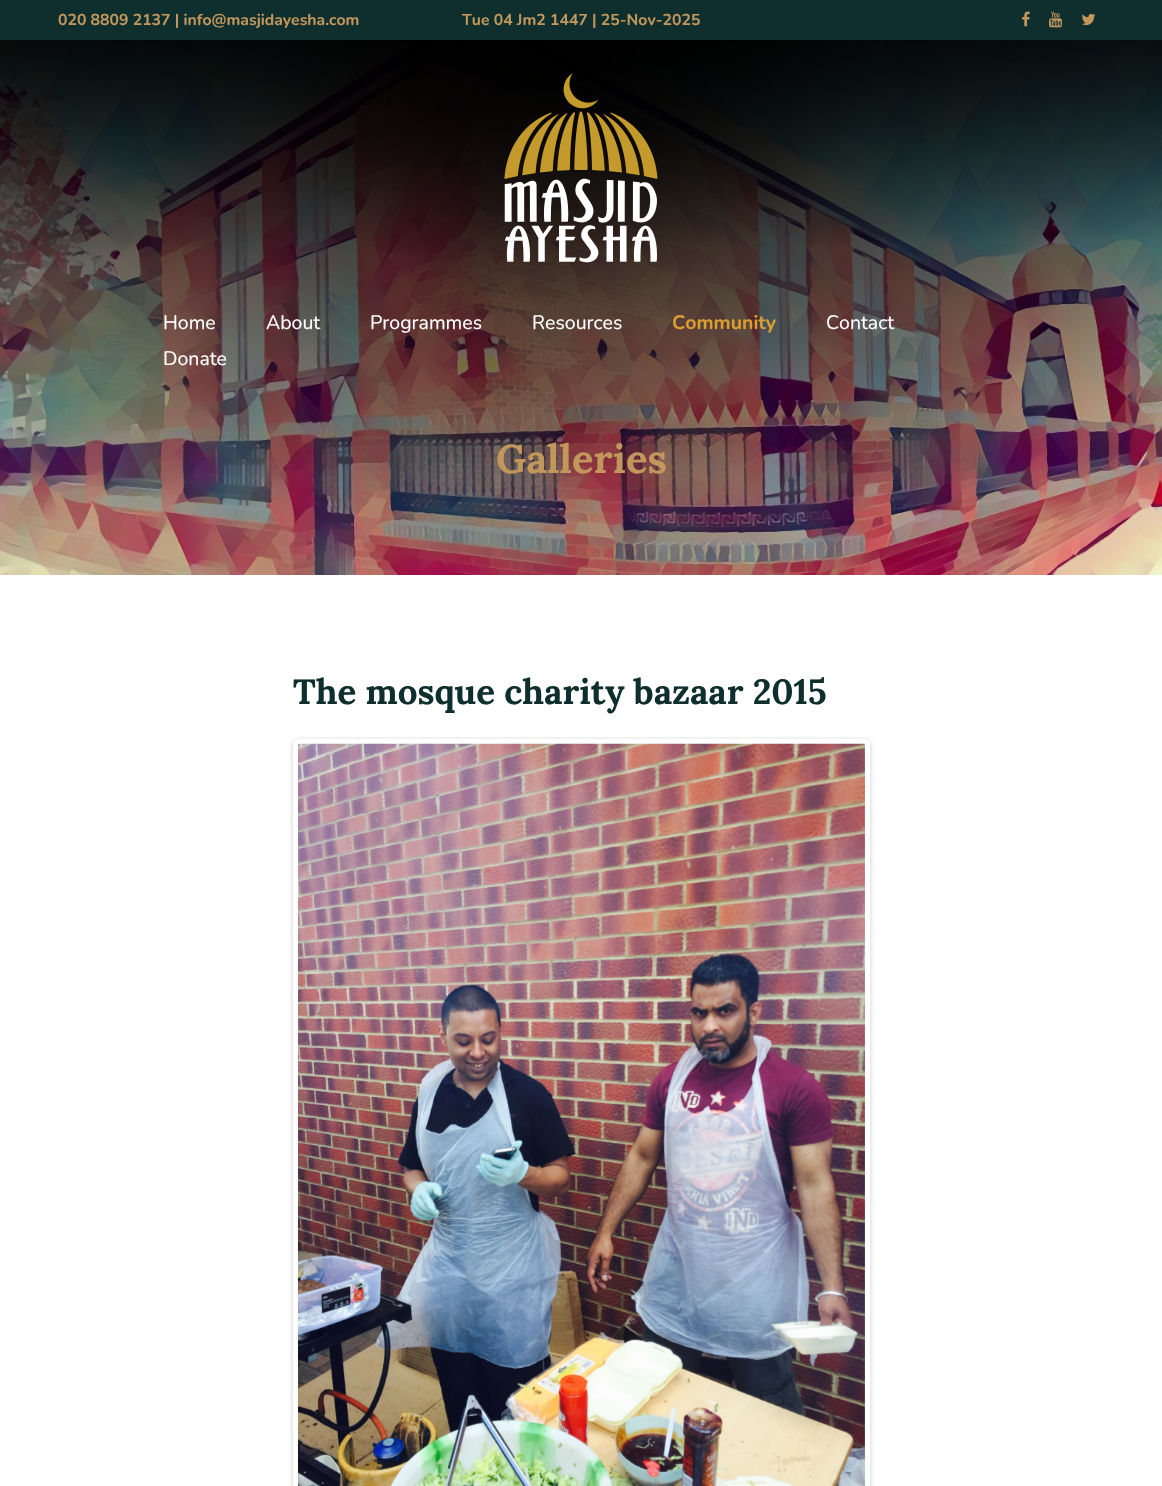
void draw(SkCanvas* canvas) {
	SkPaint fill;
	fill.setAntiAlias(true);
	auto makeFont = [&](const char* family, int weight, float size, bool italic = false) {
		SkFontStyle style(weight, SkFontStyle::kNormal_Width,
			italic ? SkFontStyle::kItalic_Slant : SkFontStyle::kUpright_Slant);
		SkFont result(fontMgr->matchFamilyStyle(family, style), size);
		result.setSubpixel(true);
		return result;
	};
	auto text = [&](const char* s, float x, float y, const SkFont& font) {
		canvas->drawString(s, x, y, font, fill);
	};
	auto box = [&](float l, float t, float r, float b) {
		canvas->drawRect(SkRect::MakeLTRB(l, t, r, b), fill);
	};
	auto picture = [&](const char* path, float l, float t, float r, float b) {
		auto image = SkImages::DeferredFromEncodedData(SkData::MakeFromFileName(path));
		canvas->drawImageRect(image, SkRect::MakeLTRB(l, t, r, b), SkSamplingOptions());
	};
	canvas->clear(0xFFFFFFFF);
	picture("image0.png", 0, 40, 1162, 575);
	fill.setColor(0xFF0F2F2E);
	box(0, 0, 1162, 40);
	picture("image1.png", 1022, 11, 1030, 27);
	picture("image2.png", 1049, 11, 1062, 28);
	picture("image3.png", 1081, 13, 1095, 26);
	picture("image4.png", 504, 73, 658, 263);
	fill.setColor(0x33000000);
	fill.setMaskFilter(SkMaskFilter::MakeBlur(kNormal_SkBlurStyle, 2.5f));
	canvas->drawRoundRect(SkRect::MakeLTRB(293, 740, 870, 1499), 5, 5, fill);
	fill.setMaskFilter(nullptr);
	fill.setStyle(SkPaint::kStroke_Style);
	fill.setStrokeWidth(5);
	fill.setColor(0xFFFFFFFF);
	canvas->drawRoundRect(SkRect::MakeLTRB(295.5f, 741.5f, 867.5f, 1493.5f), 2.5f, 2.5f, fill);
	picture("image5.png", 298, 743, 865, 1486);
	auto font1 = makeFont("Nunito", 700, 15.75f);
	fill.setStyle(SkPaint::kFill_Style);
	fill.setColor(0xFFC2975C);
	text("020 8809 2137 | info@masjidayesha.com", 58, 25, font1);
	text("Tue 04 Jm2 1447 | 25-Nov-2025", 462, 25, font1);
	auto font2 = makeFont("Nunito", 400, 19.5f);
	fill.setColor(0xFFFFFFFF);
	text("Home", 163, 329, font2);
	text("About", 266, 329, font2);
	text("Programmes", 370, 329, font2);
	text("Resources", 532, 329, font2);
	auto font3 = makeFont("Nunito", 700, 19.5f);
	fill.setColor(0xFFDB9E30);
	text("Community", 672, 329, font3);
	fill.setColor(0xFFFFFFFF);
	text("Contact", 826, 329, font2);
	text("Donate", 163, 365, font2);
	auto font4 = makeFont("Lora", 700, 40);
	fill.setColor(0xFFC2975C);
	text("Galleries", 496, 473, font4);
	auto font5 = makeFont("Lora", 700, 35);
	fill.setColor(0xFF0F2F2E);
	text("The mosque charity bazaar 2015", 293, 704, font5);
}
